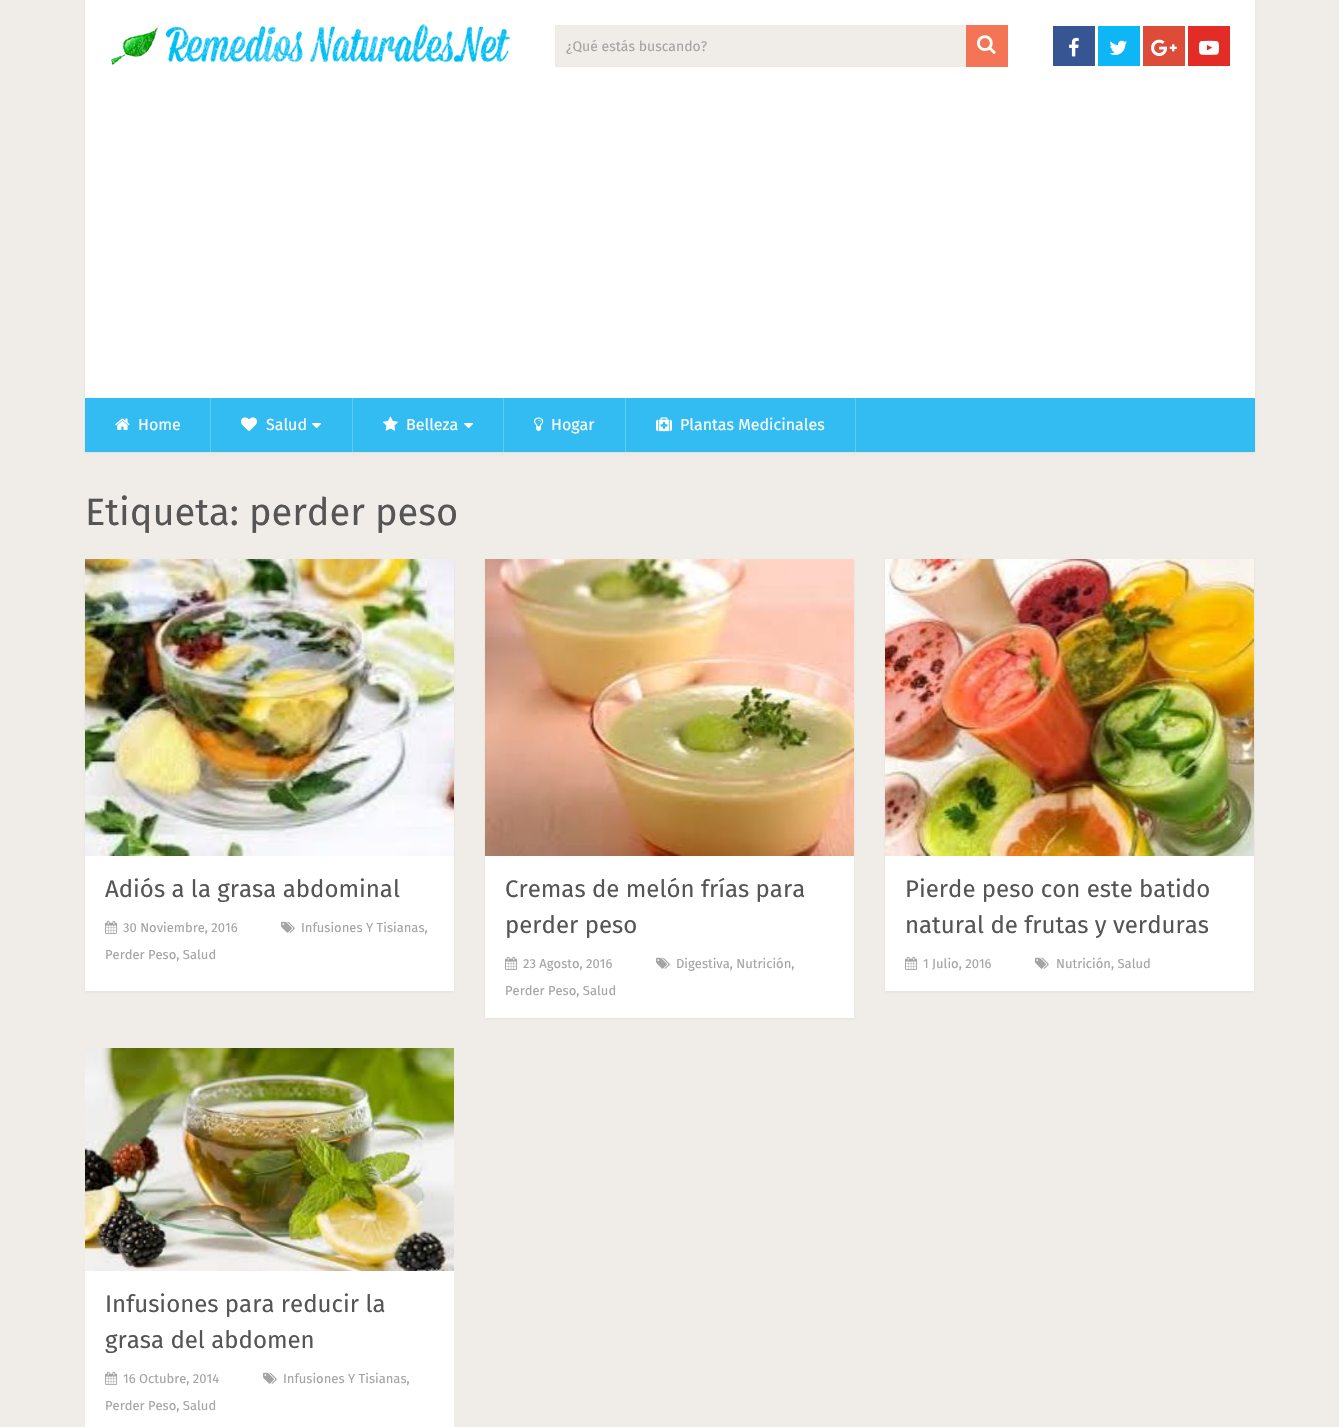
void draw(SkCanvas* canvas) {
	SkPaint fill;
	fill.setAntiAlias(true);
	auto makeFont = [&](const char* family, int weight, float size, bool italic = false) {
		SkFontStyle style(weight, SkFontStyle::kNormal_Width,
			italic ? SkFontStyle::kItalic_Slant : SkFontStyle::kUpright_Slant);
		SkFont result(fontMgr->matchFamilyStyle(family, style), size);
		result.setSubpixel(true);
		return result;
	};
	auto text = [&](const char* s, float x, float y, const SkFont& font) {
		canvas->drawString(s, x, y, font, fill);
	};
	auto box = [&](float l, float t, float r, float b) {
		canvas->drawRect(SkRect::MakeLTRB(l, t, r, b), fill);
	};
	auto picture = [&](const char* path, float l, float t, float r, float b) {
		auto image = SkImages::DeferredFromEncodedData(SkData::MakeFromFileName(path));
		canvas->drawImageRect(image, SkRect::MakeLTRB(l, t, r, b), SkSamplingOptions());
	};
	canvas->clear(0xFFF0EDE9);
	fill.setColor(0x0D000000);
	fill.setMaskFilter(SkMaskFilter::MakeBlur(kNormal_SkBlurStyle, 1));
	canvas->drawRect(SkRect::MakeLTRB(85, -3, 1255, 453), fill);
	fill.setMaskFilter(nullptr);
	fill.setColor(0xFFFFFFFF);
	box(85, 0, 1255, 398);
	picture("image0.png", 111, 24, 510, 65);
	fill.setColor(0xFFF0EDE9);
	box(556, 26, 966, 66);
	fill.setStyle(SkPaint::kStroke_Style);
	fill.setStrokeWidth(1);
	fill.setColor(0xFFEFEBE7);
	canvas->drawRect(SkRect::MakeLTRB(555.5f, 25.5f, 1007.5f, 66.5f), fill);
	fill.setStyle(SkPaint::kFill_Style);
	fill.setColor(0xFFF47555);
	box(966, 25, 1008, 67);
	picture("image1.png", 977, 35, 996, 54);
	fill.setColor(0xFF375593);
	box(1053, 26, 1095, 66);
	picture("image2.png", 1069, 37, 1079, 57);
	fill.setColor(0xFF0EB6F6);
	box(1098, 26, 1140, 66);
	picture("image3.png", 1109, 40, 1127, 55);
	fill.setColor(0xFFDD4B39);
	box(1143, 26, 1185, 66);
	picture("image4.png", 1151, 39, 1177, 56);
	fill.setColor(0xFFE32C26);
	box(1188, 26, 1230, 66);
	picture("image5.png", 1199, 40, 1219, 55);
	fill.setColor(0xFF33BCF2);
	box(85, 398, 1255, 452);
	fill.setColor(0xFF60CBF5);
	box(210, 398, 211, 452);
	picture("image6.png", 115, 418, 130, 430);
	box(352, 398, 353, 452);
	picture("image7.png", 241, 417, 257, 432);
	picture("image8.png", 312, 423, 322, 429);
	box(503, 398, 504, 452);
	picture("image9.png", 383, 416, 398, 431);
	picture("image8.png", 464, 423, 474, 429);
	box(625, 398, 626, 452);
	picture("image10.png", 534, 417, 544, 432);
	box(855, 398, 856, 452);
	picture("image11.png", 656, 417, 672, 432);
	fill.setColor(0x0D000000);
	fill.setMaskFilter(SkMaskFilter::MakeBlur(kNormal_SkBlurStyle, 1));
	canvas->drawRect(SkRect::MakeLTRB(85, 560, 454, 992), fill);
	fill.setMaskFilter(nullptr);
	fill.setColor(0xFFFFFFFF);
	box(85, 856, 454, 991);
	picture("image12.png", 85, 559, 454, 856);
	picture("image13.png", 281, 921, 295, 933);
	picture("image14.png", 105, 920, 118, 934);
	fill.setColor(0x0D000000);
	fill.setMaskFilter(SkMaskFilter::MakeBlur(kNormal_SkBlurStyle, 1));
	canvas->drawRect(SkRect::MakeLTRB(485, 560, 854, 1019), fill);
	fill.setMaskFilter(nullptr);
	fill.setColor(0xFFFFFFFF);
	box(485, 856, 854, 1018);
	picture("image15.png", 485, 559, 854, 856);
	picture("image13.png", 656, 957, 670, 969);
	picture("image14.png", 505, 956, 518, 970);
	fill.setColor(0x0D000000);
	fill.setMaskFilter(SkMaskFilter::MakeBlur(kNormal_SkBlurStyle, 1));
	canvas->drawRect(SkRect::MakeLTRB(885, 560, 1254, 992), fill);
	fill.setMaskFilter(nullptr);
	fill.setColor(0xFFFFFFFF);
	box(885, 856, 1254, 991);
	picture("image16.png", 885, 559, 1254, 856);
	picture("image14.png", 905, 956, 918, 970);
	picture("image13.png", 1035, 957, 1049, 969);
	box(85, 1271, 454, 1427);
	picture("image17.png", 85, 1048, 454, 1271);
	picture("image13.png", 263, 1372, 277, 1384);
	picture("image14.png", 105, 1371, 118, 1385);
	auto font1 = makeFont("Fira Sans", 400, 14);
	fill.setColor(0xFFA4A4A4);
	text("¿Qué estás buscando?", 566, 51, font1);
	auto font2 = makeFont("Fira Sans", 400, 16);
	fill.setColor(0xFFFFFFFF);
	text("Home", 138, 430, font2);
	text("Salud", 266, 430, font2);
	text("Belleza", 406, 430, font2);
	text("Hogar", 551, 430, font2);
	text("Plantas Medicinales", 680, 430, font2);
	auto font3 = makeFont("Fira Sans", 400, 38);
	fill.setColor(0xFF555555);
	text("Etiqueta: perder peso", 85, 525, font3);
	auto font4 = makeFont("Fira Sans", 400, 24);
	text("Adiós a la grasa abdominal", 105, 897, font4);
	auto font5 = makeFont("Fira Sans", 400, 13);
	fill.setColor(0xFFA4A4A4);
	text("Infusiones Y Tisianas,", 301, 932, font5);
	text("Perder Peso, Salud", 105, 959, font5);
	text("30 Noviembre, 2016", 123, 932, font5);
	fill.setColor(0xFF555555);
	text("Cremas de melón frías para", 505, 897, font4);
	text("perder peso", 505, 933, font4);
	fill.setColor(0xFFA4A4A4);
	text("Digestiva, Nutrición,", 676, 968, font5);
	text("Perder Peso, Salud", 505, 995, font5);
	text("23 Agosto, 2016", 523, 968, font5);
	fill.setColor(0xFF555555);
	text("Pierde peso con este batido", 905, 897, font4);
	text("natural de frutas y verduras", 905, 933, font4);
	fill.setColor(0xFFA4A4A4);
	text("1 Julio, 2016", 923, 968, font5);
	text("Nutrición, Salud", 1056, 968, font5);
	fill.setColor(0xFF555555);
	text("Infusiones para reducir la", 105, 1312, font4);
	text("grasa del abdomen", 105, 1348, font4);
	fill.setColor(0xFFA4A4A4);
	text("Infusiones Y Tisianas,", 283, 1383, font5);
	text("Perder Peso, Salud", 105, 1410, font5);
	text("16 Octubre, 2014", 123, 1383, font5);
}
